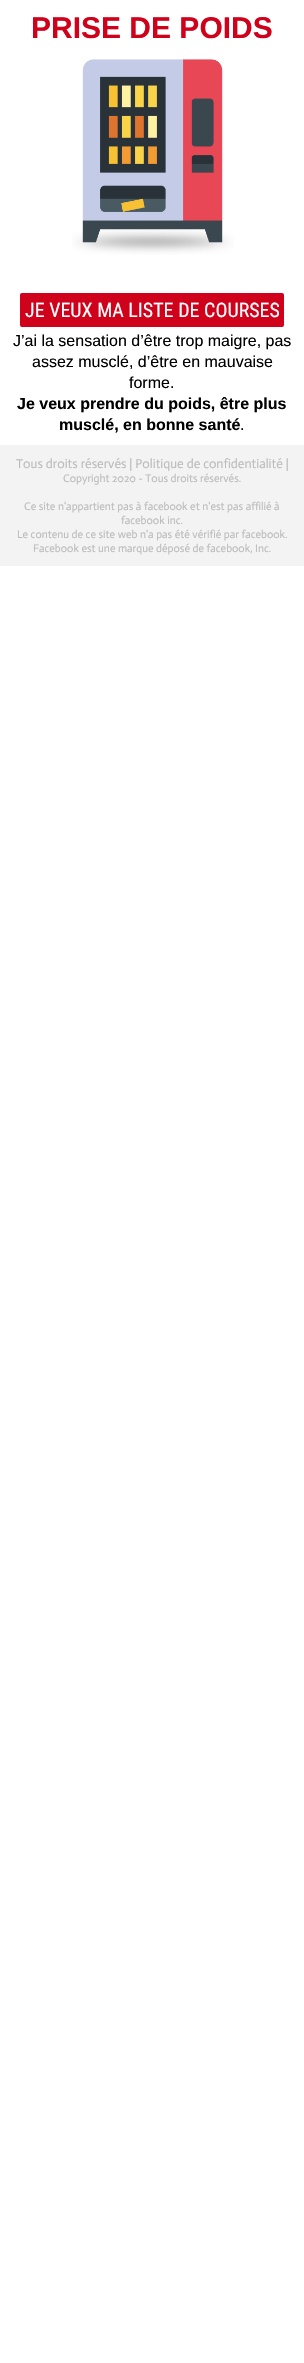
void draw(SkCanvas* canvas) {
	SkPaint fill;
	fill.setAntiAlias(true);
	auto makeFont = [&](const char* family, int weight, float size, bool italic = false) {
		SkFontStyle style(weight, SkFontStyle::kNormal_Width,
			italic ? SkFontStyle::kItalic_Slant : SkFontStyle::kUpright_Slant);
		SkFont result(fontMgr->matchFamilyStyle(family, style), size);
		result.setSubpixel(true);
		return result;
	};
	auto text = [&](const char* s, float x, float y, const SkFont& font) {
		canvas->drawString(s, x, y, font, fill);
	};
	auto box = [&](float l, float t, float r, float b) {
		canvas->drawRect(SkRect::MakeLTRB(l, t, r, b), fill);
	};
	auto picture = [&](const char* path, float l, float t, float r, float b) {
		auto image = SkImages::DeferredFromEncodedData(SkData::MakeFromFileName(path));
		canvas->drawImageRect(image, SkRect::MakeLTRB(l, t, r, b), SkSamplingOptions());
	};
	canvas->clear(0xFFFFFFFF);
	picture("image0.png", 72, 59, 234, 255);
	fill.setColor(0xFFD0021B);
	canvas->drawRoundRect(SkRect::MakeLTRB(18.5f, 291.5f, 285.5f, 328.5f), 3.5f, 3.5f, fill);
	fill.setStyle(SkPaint::kStroke_Style);
	fill.setStrokeWidth(3);
	fill.setColor(0xFFFFFFFF);
	canvas->drawRoundRect(SkRect::MakeLTRB(18.5f, 291.5f, 285.5f, 328.5f), 3.5f, 3.5f, fill);
	fill.setStyle(SkPaint::kFill_Style);
	fill.setColor(0xFFF3F3F3);
	box(0, 445, 304, 566);
	auto font1 = makeFont("Liberation Sans", 700, 30);
	fill.setColor(0xFFD0021B);
	text("PRISE DE POIDS", 31, 38, font1);
	auto font2 = makeFont("Roboto Condensed", 400, 20);
	fill.setColor(0xFFFFFFFF);
	text("JE VEUX MA LISTE DE COURSES", 25, 317, font2);
	auto font3 = makeFont("Liberation Sans", 400, 16);
	fill.setColor(0xFF000000);
	text("J’ai la sensation d’être trop maigre, pas", 13, 346, font3);
	text("assez musclé, d’être en mauvaise", 32, 367, font3);
	text("forme.", 129, 388, font3);
	auto font4 = makeFont("Liberation Sans", 700, 16);
	text("Je veux prendre du poids, être plus", 17, 409, font4);
	text("musclé, en bonne santé", 59, 430, font4);
	text(".", 240, 430, font3);
	auto font5 = makeFont("Actor", 400, 13);
	fill.setColor(0xFFBCBCBC);
	text("Tous droits réservés | Politique de confidentialité |", 16, 468, font5);
	auto font6 = makeFont("Actor", 400, 11);
	text("Copyright 2020 - Tous droits réservés.", 63, 482, font6);
	text("Ce site n'appartient pas à facebook et n'est pas affilié à", 24, 510, font6);
	text("facebook inc.", 121, 524, font6);
	text("Le contenu de ce site web n'a pas été vérifié par facebook.", 17, 538, font6);
	text("Facebook est une marque déposé de facebook, Inc.", 33, 552, font6);
}
